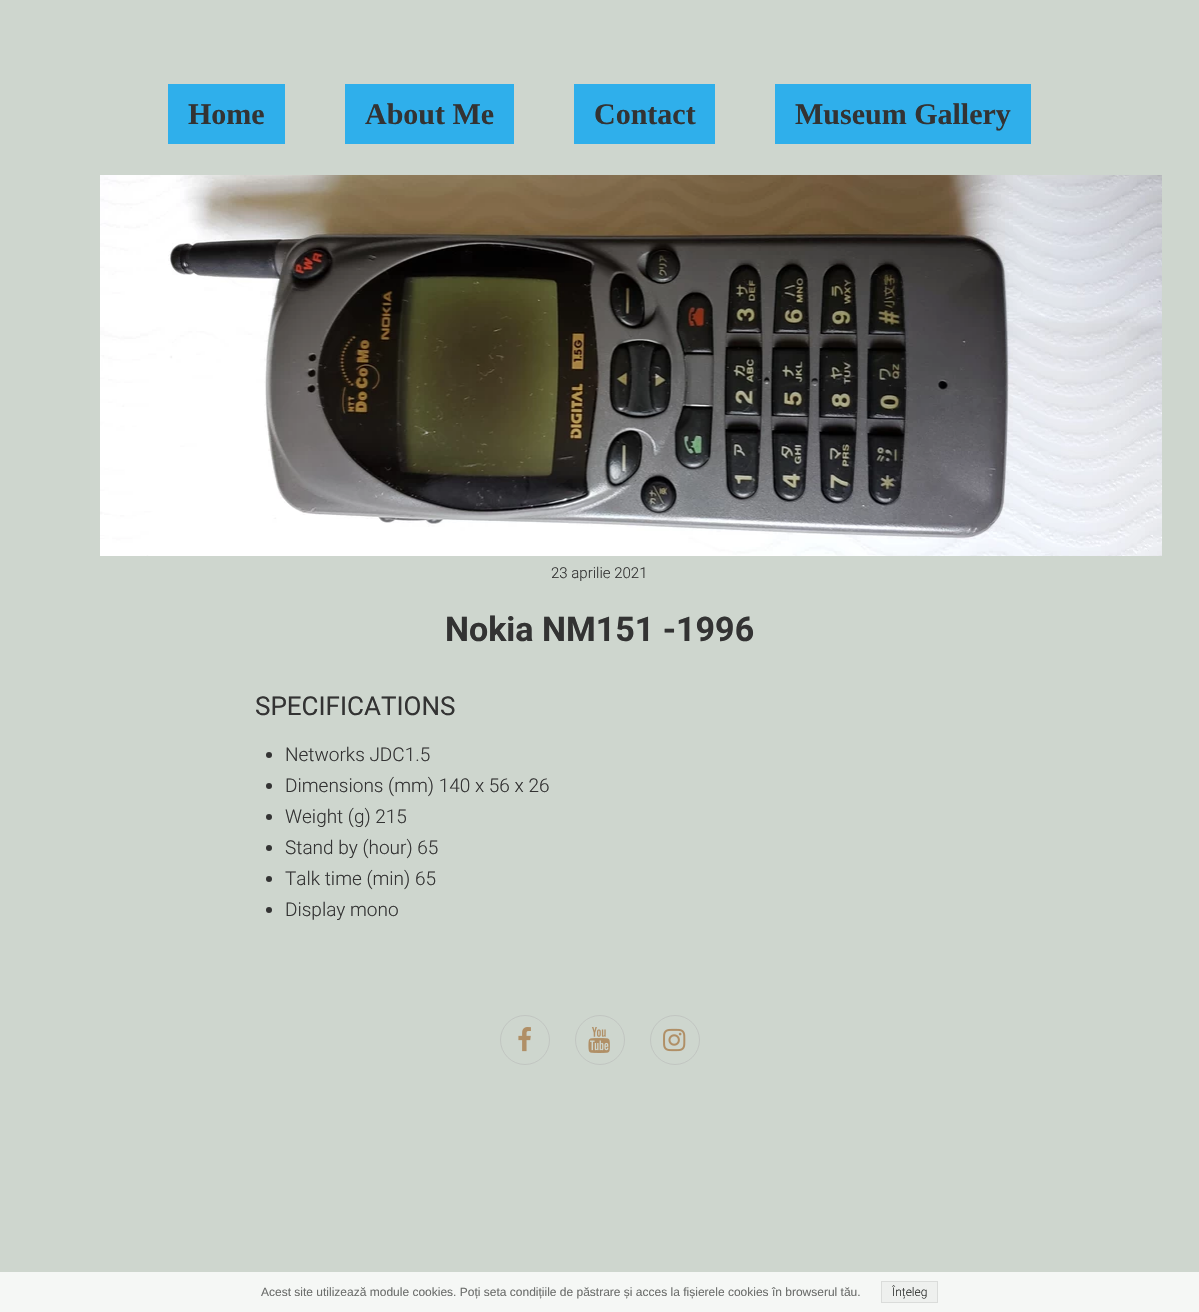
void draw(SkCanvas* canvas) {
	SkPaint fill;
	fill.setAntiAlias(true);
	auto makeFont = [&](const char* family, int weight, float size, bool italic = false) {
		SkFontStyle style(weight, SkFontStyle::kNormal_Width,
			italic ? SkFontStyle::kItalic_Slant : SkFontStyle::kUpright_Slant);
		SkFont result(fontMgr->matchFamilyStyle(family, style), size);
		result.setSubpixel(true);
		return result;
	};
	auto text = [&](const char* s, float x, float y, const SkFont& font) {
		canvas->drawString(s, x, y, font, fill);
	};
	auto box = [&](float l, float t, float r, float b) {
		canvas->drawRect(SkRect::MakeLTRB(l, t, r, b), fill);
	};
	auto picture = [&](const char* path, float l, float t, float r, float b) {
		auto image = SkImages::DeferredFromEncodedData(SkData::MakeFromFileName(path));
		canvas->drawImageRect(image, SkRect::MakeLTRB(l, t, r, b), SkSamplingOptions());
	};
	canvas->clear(0xFFCED6CE);
	fill.setColor(0xFF2FAFEB);
	box(168, 84, 285, 144);
	box(345, 84, 514, 144);
	box(574, 84, 715, 144);
	box(775, 84, 1031, 144);
	picture("image0.png", 100, 175, 1162, 556);
	fill.setColor(0xFF333333);
	canvas->drawCircle(269, 755, 3, fill);
	canvas->drawCircle(269, 786, 3, fill);
	canvas->drawCircle(269, 817, 3, fill);
	canvas->drawCircle(269, 848, 3, fill);
	canvas->drawCircle(269, 879, 3, fill);
	canvas->drawCircle(269, 910, 3, fill);
	fill.setStyle(SkPaint::kStroke_Style);
	fill.setStrokeWidth(1);
	fill.setColor(0xFFC1C5C1);
	canvas->drawCircle(525, 1040, 24.5f, fill);
	picture("image1.png", 518, 1027, 531, 1052);
	canvas->drawCircle(600, 1040, 24.5f, fill);
	picture("image2.png", 588, 1027, 610, 1053);
	canvas->drawCircle(675, 1040, 24.5f, fill);
	picture("image3.png", 663, 1028, 686, 1052);
	fill.setStyle(SkPaint::kFill_Style);
	fill.setColor(0xFFF5F7F5);
	box(0, 1272, 1199, 1312);
	fill.setColor(0xFFEEF0EE);
	canvas->drawRect(SkRect::MakeLTRB(881.5f, 1281.5f, 937.5f, 1302.5f), fill);
	fill.setStyle(SkPaint::kStroke_Style);
	fill.setColor(0xFFDADCDA);
	canvas->drawRect(SkRect::MakeLTRB(881.5f, 1281.5f, 937.5f, 1302.5f), fill);
	auto font1 = makeFont("Liberation Serif", 700, 30);
	fill.setStyle(SkPaint::kFill_Style);
	fill.setColor(0xFF333333);
	text("Home", 188, 124, font1);
	text("About Me", 365, 124, font1);
	text("Contact", 594, 124, font1);
	text("Museum Gallery", 795, 124, font1);
	auto font2 = makeFont("Roboto", 300, 15);
	text("23 aprilie 2021", 551, 578, font2);
	auto font3 = makeFont("Roboto", 700, 34);
	text("Nokia NM151 -1996", 445, 641, font3);
	auto font4 = makeFont("Roboto", 400, 26);
	text("SPECIFICATIONS", 255, 715, font4);
	auto font5 = makeFont("Roboto", 300, 19);
	text("Networks JDC1.5", 285, 761, font5);
	text("Dimensions (mm) 140 x 56 x 26", 285, 792, font5);
	text("Weight (g) 215", 285, 823, font5);
	text("Stand by (hour) 65", 285, 854, font5);
	text("Talk time (min) 65", 285, 885, font5);
	text("Display mono", 285, 916, font5);
	auto font6 = makeFont("Liberation Sans", 400, 12);
	fill.setColor(0xFF6C6E6C);
	text("Acest site utilizează module cookies. Poți seta condițiile de păstrare și acces la fișierele cookies în browserul tău.", 261, 1296, font6);
	auto font7 = makeFont("Roboto", 300, 12);
	fill.setColor(0xFF292B29);
	text("Înțeleg", 892, 1296, font7);
}
